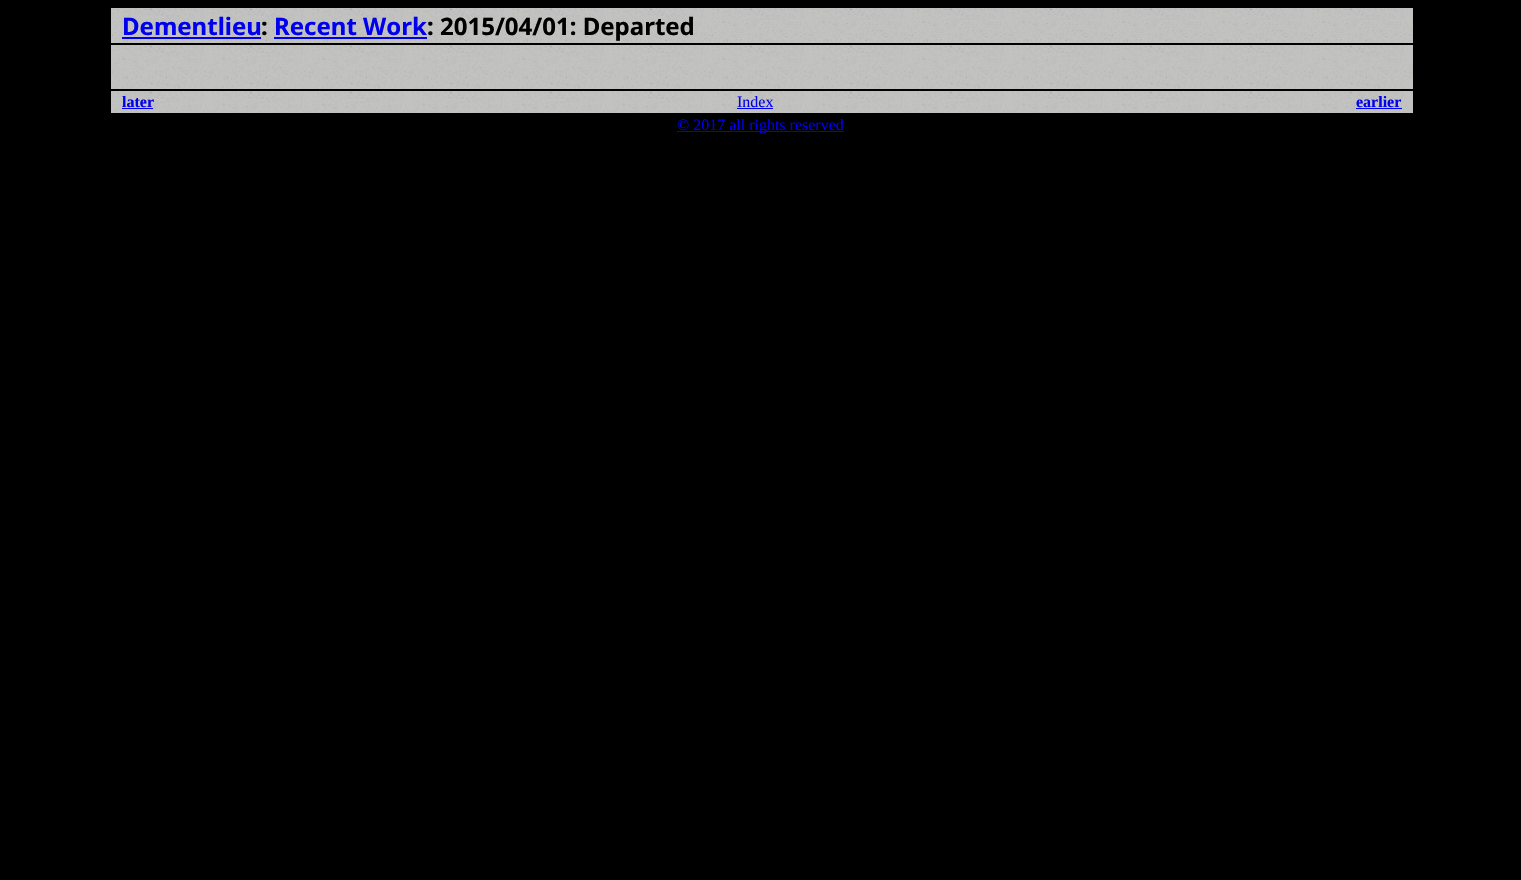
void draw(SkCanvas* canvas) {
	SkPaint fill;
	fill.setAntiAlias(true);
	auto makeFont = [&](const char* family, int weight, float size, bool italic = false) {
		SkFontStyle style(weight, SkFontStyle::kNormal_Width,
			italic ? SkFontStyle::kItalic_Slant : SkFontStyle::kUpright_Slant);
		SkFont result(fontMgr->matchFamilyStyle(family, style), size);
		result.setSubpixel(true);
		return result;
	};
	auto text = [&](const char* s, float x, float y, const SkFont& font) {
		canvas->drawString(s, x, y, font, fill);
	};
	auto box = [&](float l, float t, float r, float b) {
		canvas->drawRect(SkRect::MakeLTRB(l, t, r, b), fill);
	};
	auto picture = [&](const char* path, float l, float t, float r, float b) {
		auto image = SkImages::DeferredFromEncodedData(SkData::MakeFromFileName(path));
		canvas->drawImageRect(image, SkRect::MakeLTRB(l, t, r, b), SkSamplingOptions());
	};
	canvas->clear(0xFF000000);
	picture("image0.png", 111, 8, 1413, 43);
	fill.setColor(0xFF0000EE);
	box(122, 37, 261, 39);
	box(274, 37, 427, 39);
	picture("image1.png", 111, 45, 1413, 89);
	picture("image2.png", 111, 91, 1413, 113);
	box(122, 108, 153, 109);
	box(737, 108, 773, 109);
	box(1356, 108, 1402, 109);
	box(677, 131, 844, 132);
	auto font1 = makeFont("Noto Sans", 700, 24);
	text("Dementlieu", 122, 35, font1);
	fill.setColor(0xFF000000);
	text(":", 261, 35, font1);
	fill.setColor(0xFF0000EE);
	text("Recent Work", 274, 35, font1);
	fill.setColor(0xFF000000);
	text(": 2015/04/01: Departed", 427, 35, font1);
	auto font2 = makeFont("Liberation Serif", 700, 16);
	fill.setColor(0xFF0000EE);
	text("later", 122, 107, font2);
	auto font3 = makeFont("Liberation Serif", 400, 16);
	text("Index", 737, 107, font3);
	text("earlier", 1356, 107, font2);
	text("© 2017 all rights reserved", 677, 130, font3);
}
